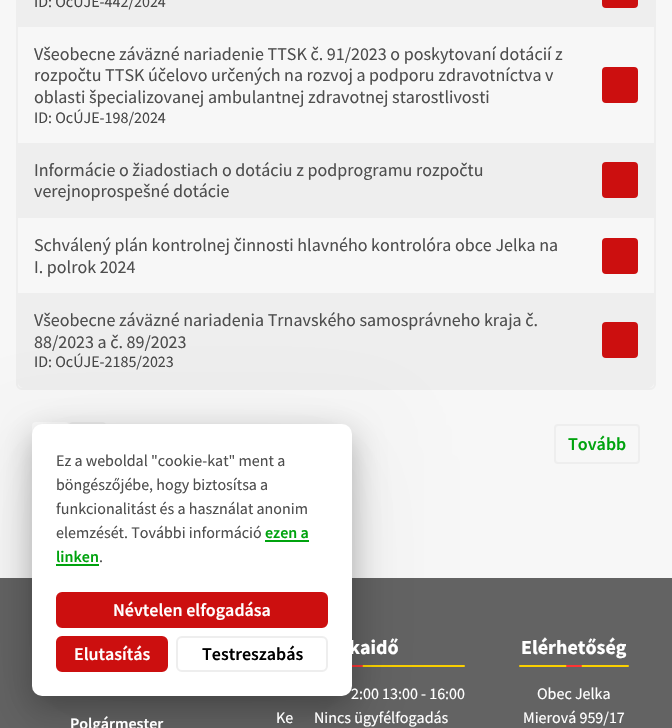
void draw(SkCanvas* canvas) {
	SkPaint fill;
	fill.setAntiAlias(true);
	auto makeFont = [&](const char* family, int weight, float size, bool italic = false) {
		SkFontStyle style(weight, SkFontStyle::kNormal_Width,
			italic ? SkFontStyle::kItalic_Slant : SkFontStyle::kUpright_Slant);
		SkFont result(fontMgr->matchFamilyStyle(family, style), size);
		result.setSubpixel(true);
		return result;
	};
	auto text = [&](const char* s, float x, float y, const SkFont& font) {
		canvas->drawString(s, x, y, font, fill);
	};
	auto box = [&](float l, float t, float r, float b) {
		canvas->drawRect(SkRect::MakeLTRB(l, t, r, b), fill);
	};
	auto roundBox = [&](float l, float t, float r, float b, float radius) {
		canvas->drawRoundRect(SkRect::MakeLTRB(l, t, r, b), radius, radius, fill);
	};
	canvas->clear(0xFFF7F7F7);
	fill.setStyle(SkPaint::kStroke_Style);
	fill.setStrokeWidth(2);
	fill.setColor(0xFFEEEEEE);
	canvas->drawRoundRect(SkRect::MakeLTRB(17, -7, 655, 389), 5, 5, fill);
	fill.setStyle(SkPaint::kFill_Style);
	box(18, 0, 654, 27);
	fill.setColor(0xFFCC0F0F);
	canvas->drawRoundRect(SkRect::MakeLTRB(603, -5, 637, 7), 3, 3, fill);
	fill.setStyle(SkPaint::kStroke_Style);
	canvas->drawRoundRect(SkRect::MakeLTRB(603, -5, 637, 7), 3, 3, fill);
	fill.setStyle(SkPaint::kFill_Style);
	canvas->drawRoundRect(SkRect::MakeLTRB(603, 68, 637, 102), 3, 3, fill);
	fill.setStyle(SkPaint::kStroke_Style);
	canvas->drawRoundRect(SkRect::MakeLTRB(603, 68, 637, 102), 3, 3, fill);
	fill.setStyle(SkPaint::kFill_Style);
	fill.setColor(0xFFEEEEEE);
	box(18, 143, 654, 218);
	fill.setColor(0xFFCC0F0F);
	canvas->drawRoundRect(SkRect::MakeLTRB(603, 163, 637, 197), 3, 3, fill);
	fill.setStyle(SkPaint::kStroke_Style);
	canvas->drawRoundRect(SkRect::MakeLTRB(603, 163, 637, 197), 3, 3, fill);
	fill.setStyle(SkPaint::kFill_Style);
	canvas->drawRoundRect(SkRect::MakeLTRB(603, 239, 637, 273), 3, 3, fill);
	fill.setStyle(SkPaint::kStroke_Style);
	canvas->drawRoundRect(SkRect::MakeLTRB(603, 239, 637, 273), 3, 3, fill);
	fill.setStyle(SkPaint::kFill_Style);
	fill.setColor(0xFFEEEEEE);
	canvas->drawPath(SkPathBuilder().moveTo(18, 293).lineTo(654, 293).lineTo(654, 382).cubicTo(654, 385.5f, 651.5f, 388, 648, 388).lineTo(24, 388).cubicTo(20.5f, 388, 18, 385.5f, 18, 382).close().detach(), fill);
	fill.setColor(0xFFCC0F0F);
	canvas->drawRoundRect(SkRect::MakeLTRB(603, 323, 637, 357), 3, 3, fill);
	fill.setStyle(SkPaint::kStroke_Style);
	canvas->drawRoundRect(SkRect::MakeLTRB(603, 323, 637, 357), 3, 3, fill);
	fill.setStyle(SkPaint::kFill_Style);
	fill.setColor(0xFFFFFFFF);
	roundBox(32, 422, 69, 462, 4);
	fill.setStyle(SkPaint::kStroke_Style);
	fill.setColor(0xFFEEEEEE);
	canvas->drawRoundRect(SkRect::MakeLTRB(70, 423, 105, 461), 3, 3, fill);
	canvas->drawRoundRect(SkRect::MakeLTRB(555, 425, 639, 463), 3, 3, fill);
	fill.setStyle(SkPaint::kFill_Style);
	fill.setColor(0xFF636363);
	box(0, 578, 672, 728);
	fill.setColor(0xFFFAD000);
	roundBox(245, 665, 465, 667, 1);
	fill.setColor(0xFFFF3434);
	roundBox(347, 665, 363, 667, 1);
	fill.setColor(0xFFFAD000);
	roundBox(519, 665, 629, 667, 1);
	fill.setColor(0xFFFF3434);
	roundBox(566, 665, 582, 667, 1);
	fill.setColor(0x0D000000);
	fill.setMaskFilter(SkMaskFilter::MakeBlur(kNormal_SkBlurStyle, 45));
	canvas->drawRoundRect(SkRect::MakeLTRB(32, 454, 352, 726), 10, 10, fill);
	fill.setMaskFilter(nullptr);
	fill.setMaskFilter(SkMaskFilter::MakeBlur(kNormal_SkBlurStyle, 30));
	canvas->drawRoundRect(SkRect::MakeLTRB(32, 444, 352, 716), 10, 10, fill);
	fill.setMaskFilter(nullptr);
	fill.setColor(0x40000000);
	fill.setMaskFilter(SkMaskFilter::MakeBlur(kNormal_SkBlurStyle, 15));
	canvas->drawRoundRect(SkRect::MakeLTRB(32, 434, 352, 706), 10, 10, fill);
	fill.setMaskFilter(nullptr);
	fill.setColor(0xFFFFFFFF);
	roundBox(32, 424, 352, 696, 10);
	fill.setColor(0xFF00A30E);
	box(265, 540, 309, 542);
	box(56, 564, 99, 566);
	fill.setColor(0xFFCC0F0F);
	canvas->drawRoundRect(SkRect::MakeLTRB(57, 593, 327, 627), 5, 5, fill);
	fill.setStyle(SkPaint::kStroke_Style);
	canvas->drawRoundRect(SkRect::MakeLTRB(57, 593, 327, 627), 5, 5, fill);
	fill.setStyle(SkPaint::kFill_Style);
	canvas->drawRoundRect(SkRect::MakeLTRB(57, 637, 167, 671), 5, 5, fill);
	fill.setStyle(SkPaint::kStroke_Style);
	canvas->drawRoundRect(SkRect::MakeLTRB(57, 637, 167, 671), 5, 5, fill);
	fill.setColor(0xFFEEEEEE);
	canvas->drawRoundRect(SkRect::MakeLTRB(177, 637, 327, 671), 5, 5, fill);
	auto font1 = makeFont("Source Sans Pro", 400, 16);
	fill.setStyle(SkPaint::kFill_Style);
	fill.setColor(0xFF474747);
	text("ID: OcÚJE-442/2024", 34, 7, font1);
	auto font2 = makeFont("Source Sans Pro", 400, 18);
	fill.setColor(0xFF4E4E4E);
	text("Všeobecne záväzné nariadenie TTSK č. 91/2023 o poskytovaní dotácií z", 34, 60, font2);
	text("rozpočtu TTSK účelovo určených na rozvoj a podporu zdravotníctva v", 34, 81, font2);
	text("oblasti špecializovanej ambulantnej zdravotnej starostlivosti", 34, 103, font2);
	fill.setColor(0xFF474747);
	text("ID: OcÚJE-198/2024", 34, 123, font1);
	fill.setColor(0xFF4E4E4E);
	text("Informácie o žiadostiach o dotáciu z podprogramu rozpočtu", 34, 176, font2);
	text("verejnoprospešné dotácie", 34, 197, font2);
	text("Schválený plán kontrolnej činnosti hlavného kontrolóra obce Jelka na", 34, 251, font2);
	text("I. polrok 2024", 34, 273, font2);
	text("Všeobecne záväzné nariadenia Trnavského samosprávneho kraja č.", 34, 326, font2);
	text("88/2023 a č. 89/2023", 34, 348, font2);
	fill.setColor(0xFF474747);
	text("ID: OcÚJE-2185/2023", 34, 367, font1);
	auto font3 = makeFont("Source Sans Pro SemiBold", 600, 18);
	fill.setColor(0xFF00A30E);
	text("Tovább", 568, 450, font3);
	auto font4 = makeFont("Source Sans Pro SemiBold", 600, 16);
	fill.setColor(0xFFFFFFFF);
	text("Polgármester", 70, 729, font4);
	auto font5 = makeFont("Source Sans Pro", 700, 20);
	text("kaidő", 349, 654, font5);
	text("2:00 13:00 - 16:00", 351, 699, font1);
	text("Ke", 276, 723, font1);
	text("Nincs ügyfélfogadás", 314, 723, font1);
	text("Elérhetőség", 521, 654, font5);
	text("Obec Jelka", 537, 699, font1);
	text("Mierová 959/17", 523, 723, font1);
	fill.setColor(0xFF4E4E4E);
	text("Ez a weboldal \"cookie-kat\" ment a", 56, 466, font1);
	text("böngészőjébe, hogy biztosítsa a", 56, 490, font1);
	text("funkcionalitást és a használat anonim", 56, 514, font1);
	text("elemzését. További információ", 56, 538, font1);
	fill.setColor(0xFF00A30E);
	text("ezen a", 265, 538, font4);
	text("linken", 56, 562, font4);
	fill.setColor(0xFF4E4E4E);
	text(".", 99, 562, font1);
	fill.setColor(0xFFFFFFFF);
	text("Névtelen elfogadása", 113, 616, font3);
	text("Elutasítás", 74, 660, font3);
	fill.setColor(0xFF000000);
	text("Testreszabás", 202, 660, font3);
}
